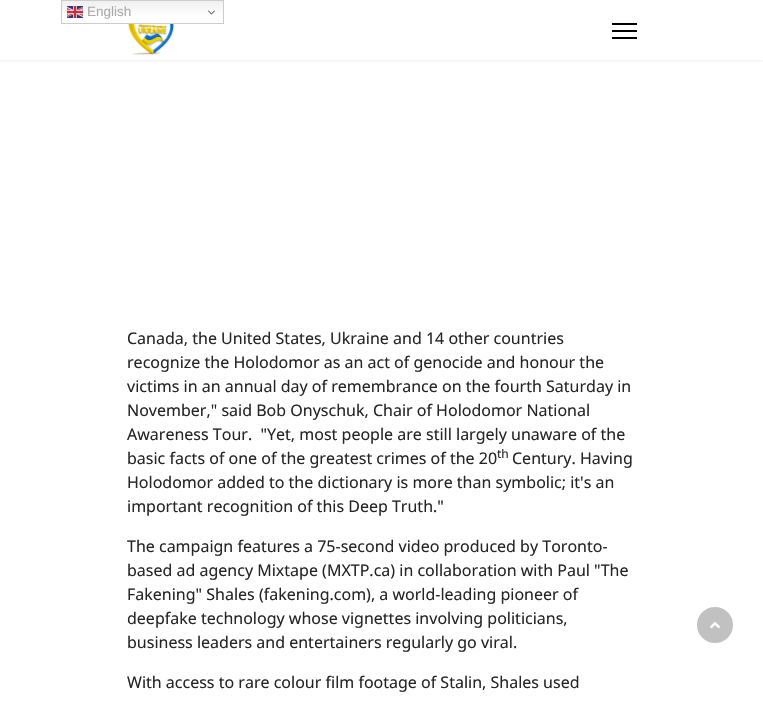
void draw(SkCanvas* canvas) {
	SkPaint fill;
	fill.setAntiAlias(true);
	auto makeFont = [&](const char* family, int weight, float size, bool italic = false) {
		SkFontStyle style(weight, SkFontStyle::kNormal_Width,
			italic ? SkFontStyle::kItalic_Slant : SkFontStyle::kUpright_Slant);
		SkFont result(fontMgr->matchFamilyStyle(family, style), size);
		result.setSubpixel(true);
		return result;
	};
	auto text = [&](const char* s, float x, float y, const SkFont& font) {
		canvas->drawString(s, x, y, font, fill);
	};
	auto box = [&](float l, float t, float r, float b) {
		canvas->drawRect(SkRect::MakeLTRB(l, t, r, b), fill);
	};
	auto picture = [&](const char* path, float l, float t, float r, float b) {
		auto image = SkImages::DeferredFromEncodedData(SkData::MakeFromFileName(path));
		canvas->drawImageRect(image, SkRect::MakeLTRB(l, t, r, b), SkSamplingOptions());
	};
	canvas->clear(0xFFFFFFFF);
	canvas->save();
	canvas->clipRect(SkRect::MakeLTRB(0, 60, 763, 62));
	fill.setColor(0x1A000000);
	fill.setMaskFilter(SkMaskFilter::MakeBlur(kNormal_SkBlurStyle, 2));
	canvas->drawRect(SkRect::MakeLTRB(0, 0, 763, 60), fill);
	fill.setMaskFilter(nullptr);
	canvas->restore();
	picture("image0.png", 128, 24, 175, 55);
	fill.setColor(0xFF000000);
	box(612, 23, 637, 25);
	box(612, 30, 637, 32);
	box(612, 37, 637, 39);
	{
		const SkColor colors[] = {0xFFEFEFEF, 0xFFFFFFFF};
		const float stops[] = {0, 0.7f};
		const SkPoint ends[] = {{143, 0}, {143, 24}};
		fill.setShader(SkGradientShader::MakeLinear(ends, colors, stops, 2, SkTileMode::kClamp));
		fill.setAlpha(255);
	}
	box(62, 1, 223, 14);
	fill.setStyle(SkPaint::kStroke_Style);
	fill.setStrokeWidth(1);
	fill.setShader(nullptr);
	fill.setColor(0xFFCCCCCC);
	canvas->drawRect(SkRect::MakeLTRB(61.5f, 0.5f, 223.5f, 23.5f), fill);
	picture("image1.png", 67, 6, 83, 18);
	picture("image2.png", 208, 10, 215, 15);
	fill.setStyle(SkPaint::kFill_Style);
	fill.setColor(0xFFC1C1C1);
	canvas->drawCircle(715, 625, 18, fill);
	picture("image3.png", 710, 622, 720, 629);
	auto font1 = makeFont("Liberation Sans", 400, 13.5f);
	fill.setColor(0xFFAAAAAA);
	text("English", 87, 16, font1);
	auto font2 = makeFont("Noto Sans", 400, 16);
	fill.setColor(0xFF252525);
	text("Canada, the United States, Ukraine and 14 other countries", 127, 344, font2);
	text("recognize the Holodomor as an act of genocide and honour the", 127, 368, font2);
	text("victims in an annual day of remembrance on the fourth Saturday in", 127, 392, font2);
	text("November,\" said Bob Onyschuk, Chair of Holodomor National", 127, 416, font2);
	text("Awareness Tour.  \"Yet, most people are still largely unaware of the", 127, 440, font2);
	text("basic facts of one of the greatest crimes of the 20", 127, 464, font2);
	auto font3 = makeFont("Noto Sans", 400, 12);
	text("th", 497, 458, font3);
	text("Century. Having", 512, 464, font2);
	text("Holodomor added to the dictionary is more than symbolic; it's an", 127, 488, font2);
	text("important recognition of this Deep Truth.\"", 127, 512, font2);
	text("The campaign features a 75-second video produced by Toronto-", 127, 552, font2);
	text("based ad agency Mixtape (MXTP.ca) in collaboration with Paul \"The", 127, 576, font2);
	text("Fakening\" Shales (fakening.com), a world-leading pioneer of", 127, 600, font2);
	text("deepfake technology whose vignettes involving politicians,", 127, 624, font2);
	text("business leaders and entertainers regularly go viral.", 127, 648, font2);
	text("With access to rare colour film footage of Stalin, Shales used", 127, 688, font2);
}
